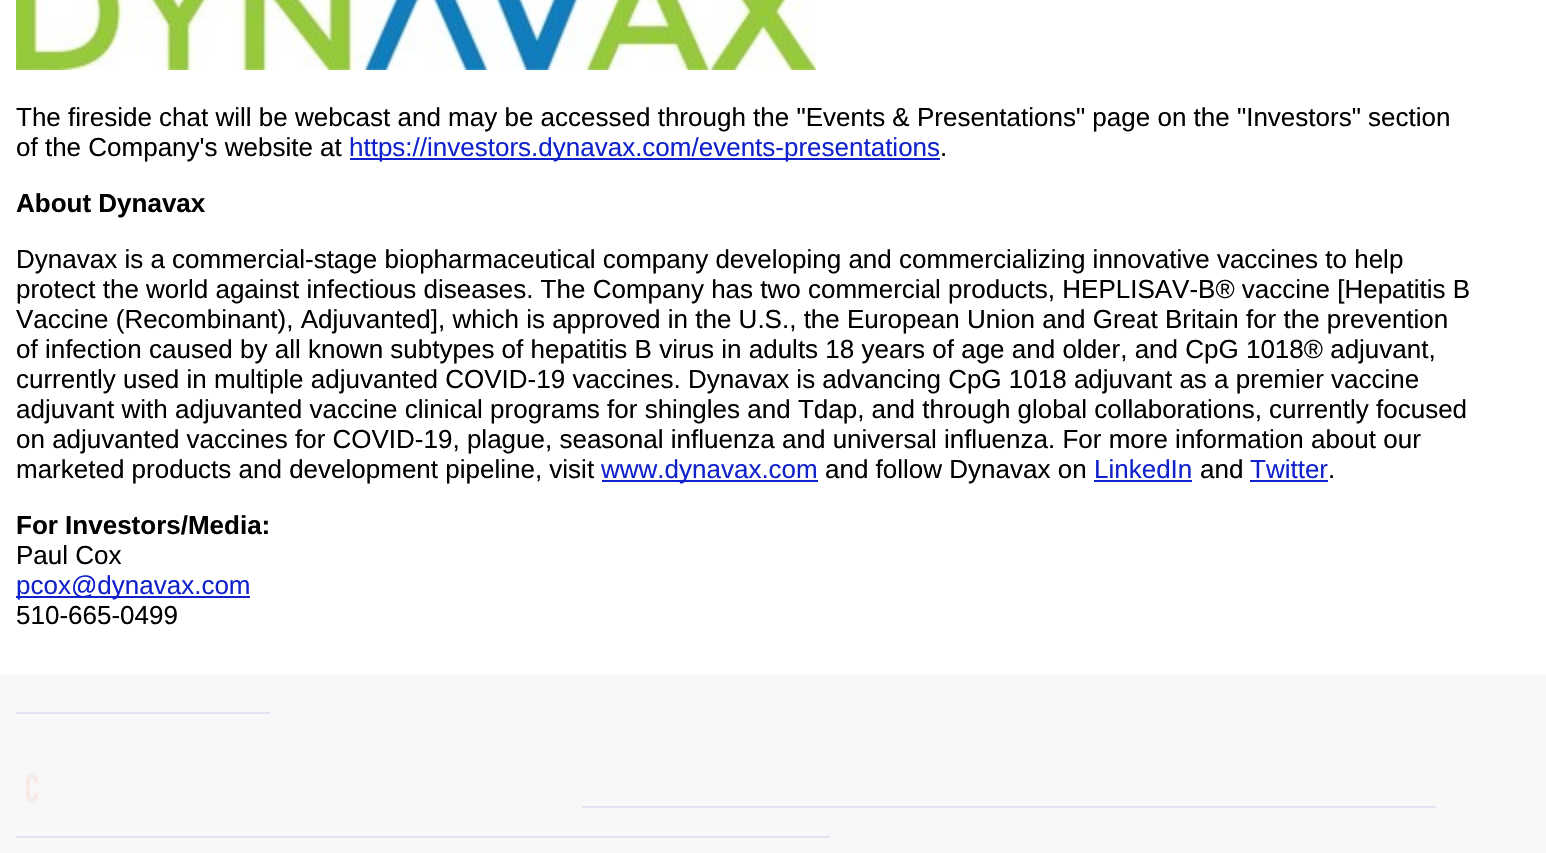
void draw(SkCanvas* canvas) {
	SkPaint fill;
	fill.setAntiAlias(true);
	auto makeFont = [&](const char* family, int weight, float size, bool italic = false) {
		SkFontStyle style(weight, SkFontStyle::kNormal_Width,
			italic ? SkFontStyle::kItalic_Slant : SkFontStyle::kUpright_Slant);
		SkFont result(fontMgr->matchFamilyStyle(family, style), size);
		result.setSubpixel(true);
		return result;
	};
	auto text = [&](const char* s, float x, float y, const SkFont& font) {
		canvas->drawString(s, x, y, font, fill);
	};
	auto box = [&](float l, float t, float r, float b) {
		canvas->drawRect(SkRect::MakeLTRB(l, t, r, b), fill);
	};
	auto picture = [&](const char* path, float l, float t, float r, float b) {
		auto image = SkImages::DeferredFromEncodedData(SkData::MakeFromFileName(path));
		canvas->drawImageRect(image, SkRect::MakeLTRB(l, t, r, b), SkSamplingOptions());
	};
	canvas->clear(0xFFFFFFFF);
	picture("image0.png", 16, 0, 816, 70);
	fill.setColor(0xFF1122CC);
	box(350, 158, 940, 160);
	box(602, 480, 818, 482);
	box(1094, 480, 1192, 482);
	box(1250, 480, 1328, 482);
	box(16, 596, 250, 598);
	box(16, 712, 270, 714);
	picture("image1.png", 25, 773, 39, 803);
	box(582, 806, 1436, 808);
	box(16, 836, 830, 838);
	fill.setColor(0xE6F7F7F7);
	box(0, 674, 1546, 853);
	auto font1 = makeFont("Liberation Sans", 400, 26);
	fill.setColor(0xFF000000);
	text("The fireside chat will be webcast and may be accessed through the \"Events & Presentations\" page on the \"Investors\" section", 16, 126, font1);
	text("of the Company's website at", 16, 156, font1);
	fill.setColor(0xFF1122CC);
	text("https://investors.dynavax.com/events-presentations", 349, 156, font1);
	fill.setColor(0xFF000000);
	text(".", 940, 156, font1);
	auto font2 = makeFont("Liberation Sans", 700, 26);
	text("About Dynavax", 16, 212, font2);
	text("Dynavax is a commercial-stage biopharmaceutical company developing and commercializing innovative vaccines to help", 16, 268, font1);
	text("protect the world against infectious diseases. The Company has two commercial products, HEPLISAV-B® vaccine [Hepatitis B", 16, 298, font1);
	text("Vaccine (Recombinant), Adjuvanted], which is approved in the U.S., the European Union and Great Britain for the prevention", 16, 328, font1);
	text("of infection caused by all known subtypes of hepatitis B virus in adults 18 years of age and older, and CpG 1018® adjuvant,", 16, 358, font1);
	text("currently used in multiple adjuvanted COVID-19 vaccines. Dynavax is advancing CpG 1018 adjuvant as a premier vaccine", 16, 388, font1);
	text("adjuvant with adjuvanted vaccine clinical programs for shingles and Tdap, and through global collaborations, currently focused", 16, 418, font1);
	text("on adjuvanted vaccines for COVID-19, plague, seasonal influenza and universal influenza. For more information about our", 16, 448, font1);
	text("marketed products and development pipeline, visit", 16, 478, font1);
	fill.setColor(0xFF1122CC);
	text("www.dynavax.com", 601, 478, font1);
	fill.setColor(0xFF000000);
	text("and follow Dynavax on", 825, 478, font1);
	fill.setColor(0xFF1122CC);
	text("LinkedIn", 1094, 478, font1);
	fill.setColor(0xFF000000);
	text("and", 1200, 478, font1);
	fill.setColor(0xFF1122CC);
	text("Twitter", 1250, 478, font1);
	fill.setColor(0xFF000000);
	text(".", 1328, 478, font1);
	text("For Investors/Media:", 16, 534, font2);
	text("Paul Cox", 16, 564, font1);
	fill.setColor(0xFF1122CC);
	text("pcox@dynavax.com", 16, 594, font1);
	fill.setColor(0xFF000000);
	text("510-665-0499", 16, 624, font1);
}
